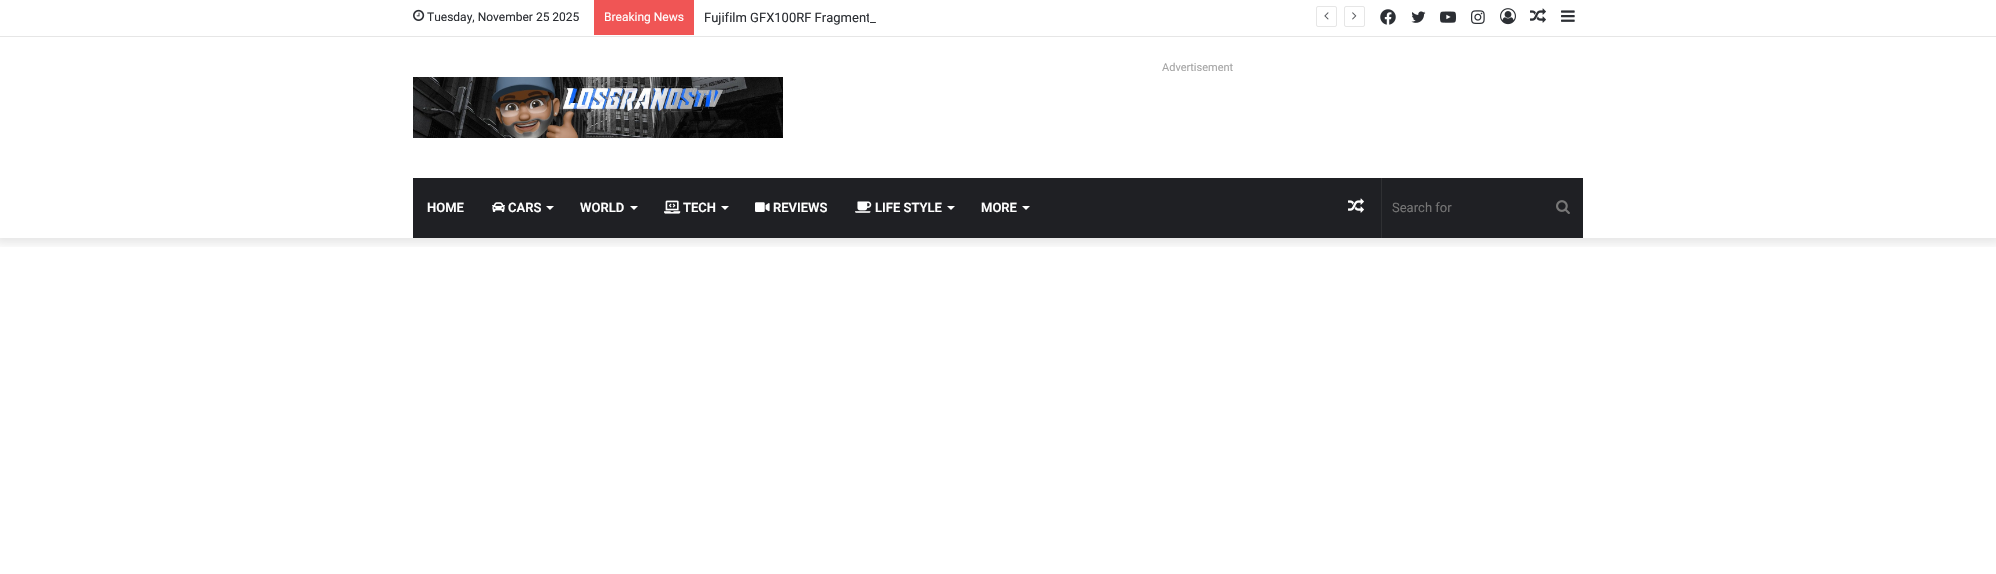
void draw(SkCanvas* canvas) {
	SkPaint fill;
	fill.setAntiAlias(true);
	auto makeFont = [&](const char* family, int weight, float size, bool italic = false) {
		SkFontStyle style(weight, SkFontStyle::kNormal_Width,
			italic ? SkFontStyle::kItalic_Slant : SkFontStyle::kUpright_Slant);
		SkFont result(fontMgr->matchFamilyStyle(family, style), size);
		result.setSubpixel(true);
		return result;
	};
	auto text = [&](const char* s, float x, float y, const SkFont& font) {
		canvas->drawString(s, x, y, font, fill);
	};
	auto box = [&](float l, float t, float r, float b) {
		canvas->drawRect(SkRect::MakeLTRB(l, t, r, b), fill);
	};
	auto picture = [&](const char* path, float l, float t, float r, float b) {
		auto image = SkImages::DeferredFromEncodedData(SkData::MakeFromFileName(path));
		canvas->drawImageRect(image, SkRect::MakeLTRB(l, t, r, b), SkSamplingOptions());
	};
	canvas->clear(0xFFFFFFFF);
	canvas->save();
	canvas->clipRect(SkRect::MakeLTRB(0, 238, 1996, 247));
	fill.setColor(0x1A000000);
	fill.setMaskFilter(SkMaskFilter::MakeBlur(kNormal_SkBlurStyle, 5));
	canvas->drawRect(SkRect::MakeLTRB(-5, -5, 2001, 243), fill);
	fill.setMaskFilter(nullptr);
	canvas->restore();
	fill.setColor(0xFFE6E6E6);
	box(0, 36, 1996, 37);
	picture("image0.png", 413, 9, 425, 21);
	fill.setColor(0xFFF05555);
	box(594, 0, 694, 35);
	fill.setStyle(SkPaint::kStroke_Style);
	fill.setStrokeWidth(1);
	fill.setColor(0xFFE6E6E6);
	canvas->drawRoundRect(SkRect::MakeLTRB(1316.5f, 6.5f, 1336.5f, 26.5f), 1.5f, 1.5f, fill);
	picture("image1.png", 1324, 12, 1329, 20);
	canvas->drawRoundRect(SkRect::MakeLTRB(1344.5f, 6.5f, 1364.5f, 26.5f), 1.5f, 1.5f, fill);
	picture("image2.png", 1352, 12, 1357, 20);
	picture("image3.png", 1380, 9, 1396, 25);
	picture("image4.png", 1411, 11, 1426, 23);
	picture("image5.png", 1440, 11, 1456, 23);
	picture("image6.png", 1471, 10, 1485, 24);
	picture("image7.png", 1500, 8, 1516, 25);
	picture("image8.png", 1530, 8, 1546, 23);
	picture("image9.png", 1561, 10, 1575, 22);
	picture("image10.png", 413, 77, 783, 138);
	fill.setStyle(SkPaint::kFill_Style);
	fill.setColor(0xFF1F2024);
	box(413, 178, 1583, 238);
	picture("image11.png", 492, 202, 505, 212);
	fill.setColor(0xFFFFFFFF);
	canvas->drawPath(SkPathBuilder().moveTo(546, 206).lineTo(554, 206).lineTo(550, 210).close().detach(), fill);
	canvas->drawPath(SkPathBuilder().moveTo(630, 206).lineTo(638, 206).lineTo(634, 210).close().detach(), fill);
	picture("image12.png", 664, 200, 681, 214);
	canvas->drawPath(SkPathBuilder().moveTo(721, 206).lineTo(729, 206).lineTo(725, 210).close().detach(), fill);
	picture("image13.png", 755, 202, 770, 212);
	picture("image14.png", 855, 201, 872, 213);
	canvas->drawPath(SkPathBuilder().moveTo(947, 206).lineTo(955, 206).lineTo(951, 210).close().detach(), fill);
	canvas->drawPath(SkPathBuilder().moveTo(1022, 206).lineTo(1030, 206).lineTo(1026, 210).close().detach(), fill);
	picture("image15.png", 1348, 198, 1364, 213);
	fill.setColor(0xFF2F3033);
	box(1381, 178, 1382, 238);
	picture("image16.png", 1556, 200, 1570, 214);
	auto font1 = makeFont("Roboto", 400, 12);
	fill.setColor(0xFF2C2F34);
	text("Tuesday, November 25 2025", 427, 21, font1);
	fill.setColor(0xFFFFFFFF);
	text("Breaking News", 604, 21, font1);
	auto font2 = makeFont("Roboto", 400, 13);
	fill.setColor(0xFF2C2F34);
	text("Fujifilm GFX100RF Fragment", 704, 22, font2);
	fill.setColor(0xFFFFFFFF);
	box(869, 15, 871, 23);
	fill.setColor(0xFF2C2F34);
	text("_", 870, 22, font2);
	auto font3 = makeFont("Roboto", 400, 11);
	fill.setColor(0xFFA5A5A5);
	text("Advertisement", 1162, 71, font3);
	auto font4 = makeFont("Roboto", 600, 13);
	fill.setColor(0xFFFFFFFF);
	text("HOME", 427, 212, font4);
	text("CARS", 508, 212, font4);
	text("WORLD", 580, 212, font4);
	text("TECH", 683, 212, font4);
	text("REVIEWS", 773, 212, font4);
	text("LIFE STYLE", 875, 212, font4);
	text("MORE", 981, 212, font4);
	fill.setColor(0xFF757575);
	text("Search for", 1392, 212, font2);
}
